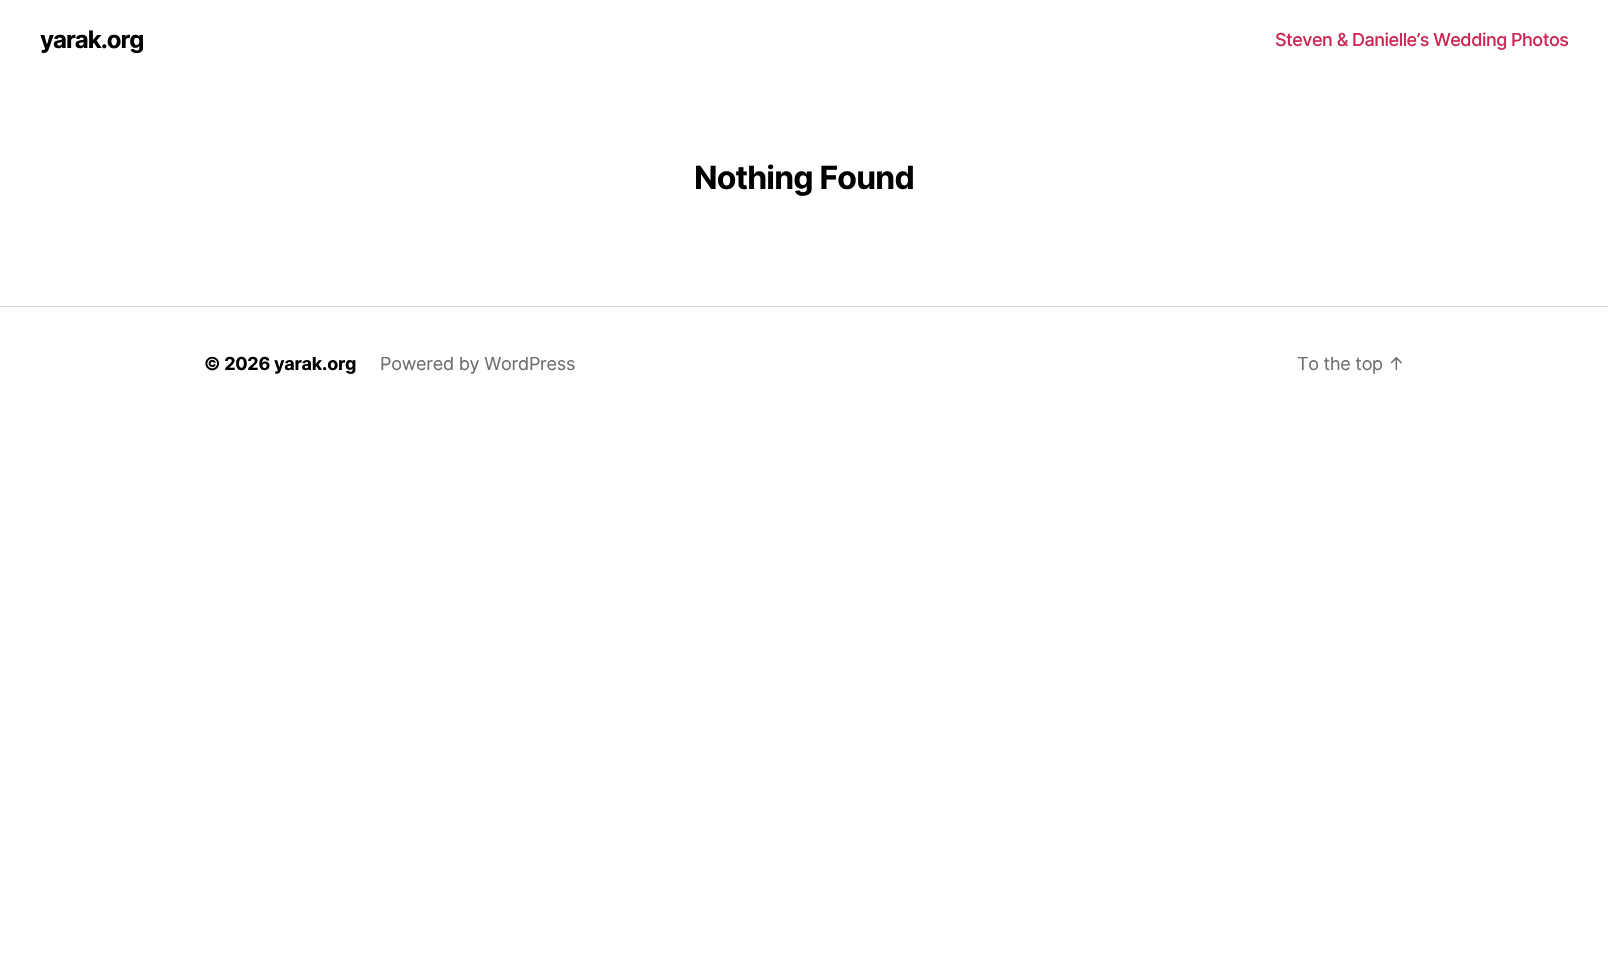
void draw(SkCanvas* canvas) {
	SkPaint fill;
	fill.setAntiAlias(true);
	auto makeFont = [&](const char* family, int weight, float size, bool italic = false) {
		SkFontStyle style(weight, SkFontStyle::kNormal_Width,
			italic ? SkFontStyle::kItalic_Slant : SkFontStyle::kUpright_Slant);
		SkFont result(fontMgr->matchFamilyStyle(family, style), size);
		result.setSubpixel(true);
		return result;
	};
	auto spacedText = [&](const char* s, float x, float y, const SkFont& font, const SkPaint& ink, float letter, float word) {
		std::vector<SkGlyphID> glyphs(font.countText(s, strlen(s), SkTextEncoding::kUTF8));
		std::vector<float> xs(glyphs.size());
		font.textToGlyphs(s, strlen(s), SkTextEncoding::kUTF8, glyphs);
		font.getXPos(glyphs, xs, x);
		float extra = 0;
		for (size_t i = 0; i < glyphs.size(); i++) {
			xs[i] += extra;
			extra += letter + word * (glyphs[i] == font.unicharToGlyph(' '));
		}
		canvas->drawTextBlob(SkTextBlob::MakeFromPosHGlyphs(glyphs, xs, y, font), 0, 0, ink);
	};
	auto box = [&](float l, float t, float r, float b) {
		canvas->drawRect(SkRect::MakeLTRB(l, t, r, b), fill);
	};
	canvas->clear(0xFFFFFFFF);
	fill.setColor(0xFFDCD7CA);
	box(0, 306, 1608, 307);
	auto font1 = makeFont("Inter", 700, 24);
	fill.setColor(0xFF000000);
	spacedText("yarak.org", 40, 48, font1, fill, -1, 0);
	auto font2 = makeFont("Inter", 500, 18);
	fill.setColor(0xFFCD2653);
	spacedText("Steven & Danielle’s Wedding Photos", 1275, 46, font2, fill, -0.5f, 0);
	auto font3 = makeFont("Inter", 700, 32);
	fill.setColor(0xFF000000);
	spacedText("Nothing Found", 694, 189, font3, fill, -0.8f, 0);
	auto font4 = makeFont("Inter", 700, 18);
	spacedText("© 2026 yarak.org", 204, 370, font4, fill, -0.25f, 0);
	auto font5 = makeFont("Inter", 400, 18);
	fill.setColor(0xFF6D6D6D);
	spacedText("Powered by WordPress", 380, 370, font5, fill, -0.25f, 0);
	spacedText("To the top ↑", 1297, 370, font5, fill, -0.25f, 0);
}
